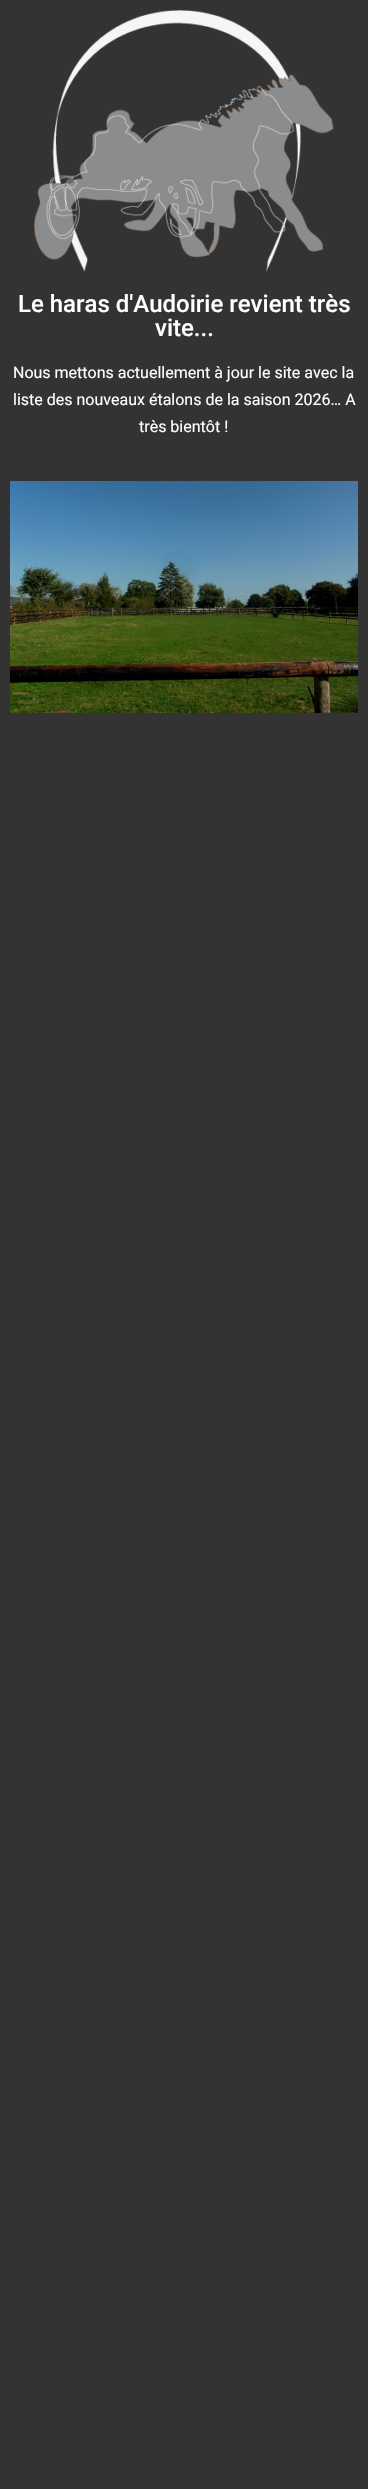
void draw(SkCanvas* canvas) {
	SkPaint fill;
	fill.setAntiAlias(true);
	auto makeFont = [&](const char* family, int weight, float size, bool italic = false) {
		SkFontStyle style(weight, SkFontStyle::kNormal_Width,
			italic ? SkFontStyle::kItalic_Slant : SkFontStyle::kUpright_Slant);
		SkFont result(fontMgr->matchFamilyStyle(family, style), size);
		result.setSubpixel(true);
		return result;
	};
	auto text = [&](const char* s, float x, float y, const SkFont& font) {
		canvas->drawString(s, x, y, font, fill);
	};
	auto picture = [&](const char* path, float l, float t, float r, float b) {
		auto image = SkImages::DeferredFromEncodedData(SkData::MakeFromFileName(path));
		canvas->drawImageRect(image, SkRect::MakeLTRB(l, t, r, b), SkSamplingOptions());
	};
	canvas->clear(0xFF333333);
	picture("image0.png", 34, 10, 334, 272);
	picture("image1.png", 10, 481, 358, 713);
	auto font1 = makeFont("Roboto", 500, 24);
	fill.setColor(0xFFFFFFFF);
	text("Le haras d'Audoirie revient très", 18, 312, font1);
	text("vite...", 155, 336, font1);
	auto font2 = makeFont("Roboto", 400, 16);
	text("Nous mettons actuellement à jour le site avec la", 13, 378, font2);
	text("liste des nouveaux étalons de la saison 2026… A", 13, 405, font2);
	text("très bientôt !", 139, 432, font2);
}
